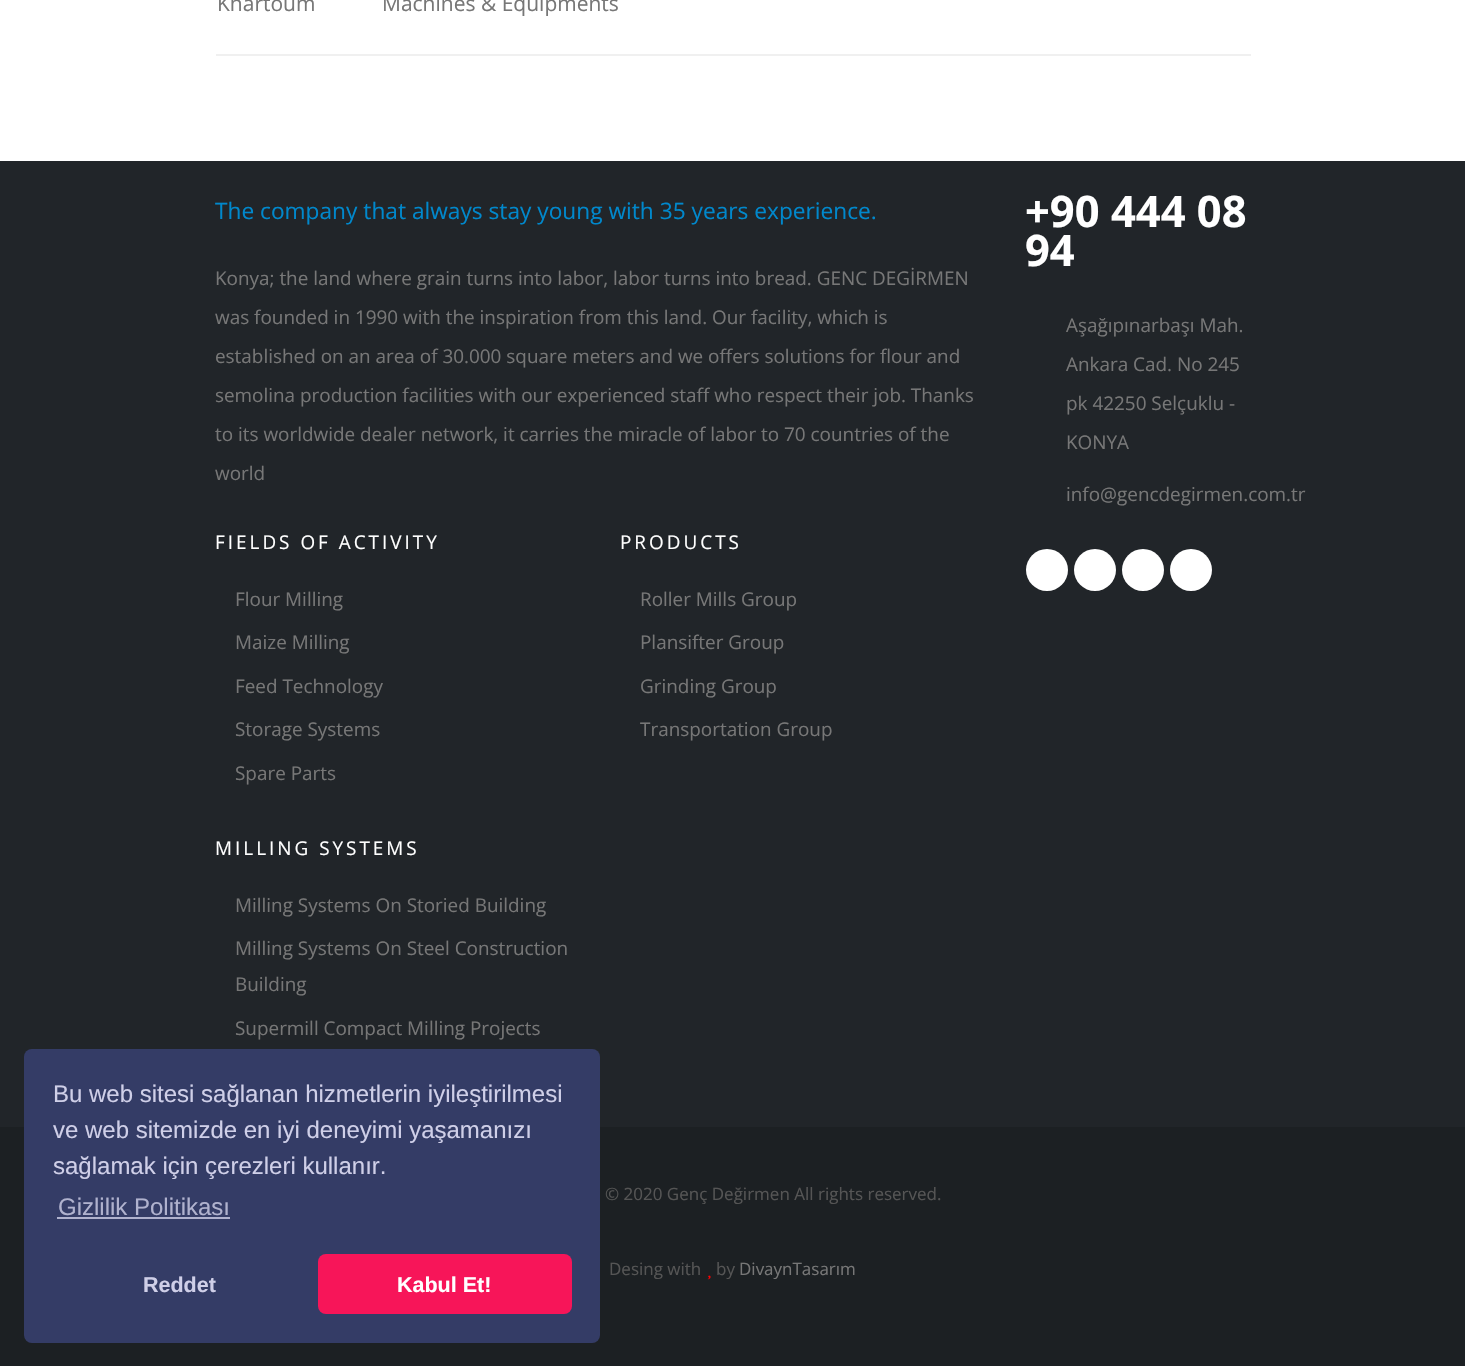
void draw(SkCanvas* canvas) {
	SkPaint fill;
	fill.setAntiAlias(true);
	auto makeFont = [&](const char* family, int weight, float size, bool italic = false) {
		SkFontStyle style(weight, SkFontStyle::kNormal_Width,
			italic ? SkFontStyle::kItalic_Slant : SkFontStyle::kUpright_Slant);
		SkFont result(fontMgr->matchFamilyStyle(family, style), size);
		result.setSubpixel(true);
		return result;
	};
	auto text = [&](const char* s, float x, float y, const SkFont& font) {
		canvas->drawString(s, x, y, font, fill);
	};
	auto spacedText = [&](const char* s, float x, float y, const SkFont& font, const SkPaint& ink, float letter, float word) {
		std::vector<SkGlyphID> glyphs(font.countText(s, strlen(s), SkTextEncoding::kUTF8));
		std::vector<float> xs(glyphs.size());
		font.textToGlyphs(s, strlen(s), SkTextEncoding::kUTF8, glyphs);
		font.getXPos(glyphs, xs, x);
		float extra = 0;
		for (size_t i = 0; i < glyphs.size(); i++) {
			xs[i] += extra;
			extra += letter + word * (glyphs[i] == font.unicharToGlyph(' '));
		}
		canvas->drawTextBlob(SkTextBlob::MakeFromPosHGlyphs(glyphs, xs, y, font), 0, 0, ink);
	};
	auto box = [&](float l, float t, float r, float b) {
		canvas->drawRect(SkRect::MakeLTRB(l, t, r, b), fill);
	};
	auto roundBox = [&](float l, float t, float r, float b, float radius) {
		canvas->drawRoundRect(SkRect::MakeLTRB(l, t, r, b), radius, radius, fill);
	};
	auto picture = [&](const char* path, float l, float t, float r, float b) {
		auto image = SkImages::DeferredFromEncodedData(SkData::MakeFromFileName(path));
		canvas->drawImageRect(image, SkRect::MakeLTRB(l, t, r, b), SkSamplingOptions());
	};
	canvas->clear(0xFFFFFFFF);
	fill.setColor(0xFFF0F0F0);
	box(216, 54, 1251, 56);
	fill.setColor(0xFF212529);
	box(0, 161, 1465, 1127);
	fill.setColor(0xFFFFFFFF);
	canvas->drawCircle(1047, 570, 21, fill);
	canvas->drawCircle(1095, 570, 21, fill);
	canvas->drawCircle(1143, 570, 21, fill);
	canvas->drawCircle(1191, 570, 21, fill);
	fill.setColor(0xFF1C2023);
	box(0, 1127, 1465, 1366);
	picture("image0.png", 707, 1275, 711, 1280);
	fill.setColor(0xFF343C66);
	roundBox(24, 1049, 600, 1343, 8);
	fill.setColor(0xFFB0B2CE);
	box(57, 1217, 230, 1219);
	fill.setColor(0xFFF71559);
	roundBox(318, 1254, 572, 1314, 8);
	auto font1 = makeFont("Open Sans", 400, 21);
	fill.setColor(0xFF777777);
	text("Khartoum", 217, 11, font1);
	text("Machines & Equipments", 382, 11, font1);
	auto font2 = makeFont("Open Sans", 400, 22.7f);
	fill.setColor(0xFF0088CC);
	text("The company that always stay young with 35 years experience.", 215, 219, font2);
	auto font3 = makeFont("Open Sans", 400, 18.9f);
	fill.setColor(0xFF777777);
	text("Konya; the land where grain turns into labor, labor turns into bread. GENC DEGİRMEN", 215, 285, font3);
	text("was founded in 1990 with the inspiration from this land. Our facility, which is", 215, 324, font3);
	text("established on an area of 30.000 square meters and we offers solutions for flour and", 215, 363, font3);
	text("semolina production facilities with our experienced staff who respect their job. Thanks", 215, 402, font3);
	text("to its worldwide dealer network, it carries the miracle of labor to 70 countries of the", 215, 441, font3);
	text("world", 215, 480, font3);
	fill.setColor(0xFFFFFFFF);
	spacedText("FIELDS OF ACTIVITY", 215, 549, font3, fill, 3, 0);
	fill.setColor(0xFF777777);
	text("Flour Milling", 235, 606, font3);
	text("Maize Milling", 235, 649, font3);
	text("Feed Technology", 235, 693, font3);
	text("Storage Systems", 235, 736, font3);
	text("Spare Parts", 235, 780, font3);
	fill.setColor(0xFFFFFFFF);
	spacedText("PRODUCTS", 620, 549, font3, fill, 3, 0);
	fill.setColor(0xFF777777);
	text("Roller Mills Group", 640, 606, font3);
	text("Plansifter Group", 640, 649, font3);
	text("Grinding Group", 640, 693, font3);
	text("Transportation Group", 640, 736, font3);
	fill.setColor(0xFFFFFFFF);
	spacedText("MILLING SYSTEMS", 215, 855, font3, fill, 3, 0);
	fill.setColor(0xFF777777);
	text("Milling Systems On Storied Building", 235, 912, font3);
	text("Milling Systems On Steel Construction", 235, 955, font3);
	text("Building", 235, 991, font3);
	text("Supermill Compact Milling Projects", 235, 1035, font3);
	auto font4 = makeFont("Open Sans", 700, 43.5f);
	fill.setColor(0xFFFFFFFF);
	text("+90 444 08", 1025, 227, font4);
	text("94", 1025, 266, font4);
	fill.setColor(0xFF777777);
	text("Aşağıpınarbaşı Mah.", 1066, 332, font3);
	text("Ankara Cad. No 245", 1066, 371, font3);
	text("pk 42250 Selçuklu -", 1066, 410, font3);
	text("KONYA", 1066, 449, font3);
	text("info@gencdegirmen.com.tr", 1066, 501, font3);
	auto font5 = makeFont("Open Sans", 400, 17);
	fill.setColor(0xFF555555);
	text("© 2020 Genç Değirmen All rights reserved.", 605, 1200, font5);
	text("Desing with", 609, 1275, font5);
	text("by", 716, 1275, font5);
	fill.setColor(0xFF777777);
	text("DivaynTasarım", 739, 1275, font5);
	auto font6 = makeFont("Liberation Sans", 400, 24);
	fill.setColor(0xFFCFCFE8);
	text("Bu web sitesi sağlanan hizmetlerin iyileştirilmesi", 53, 1102, font6);
	text("ve web sitemizde en iyi deneyimi yaşamanızı", 53, 1138, font6);
	text("sağlamak için çerezleri kullanır.", 53, 1174, font6);
	fill.setColor(0xFFB0B2CE);
	text("Gizlilik Politikası", 58, 1215, font6);
	auto font7 = makeFont("Liberation Sans", 700, 21.5f);
	fill.setColor(0xFFCFCFE8);
	text("Reddet", 143, 1292, font7);
	fill.setColor(0xFFFFFFFF);
	text("Kabul Et!", 397, 1292, font7);
}
